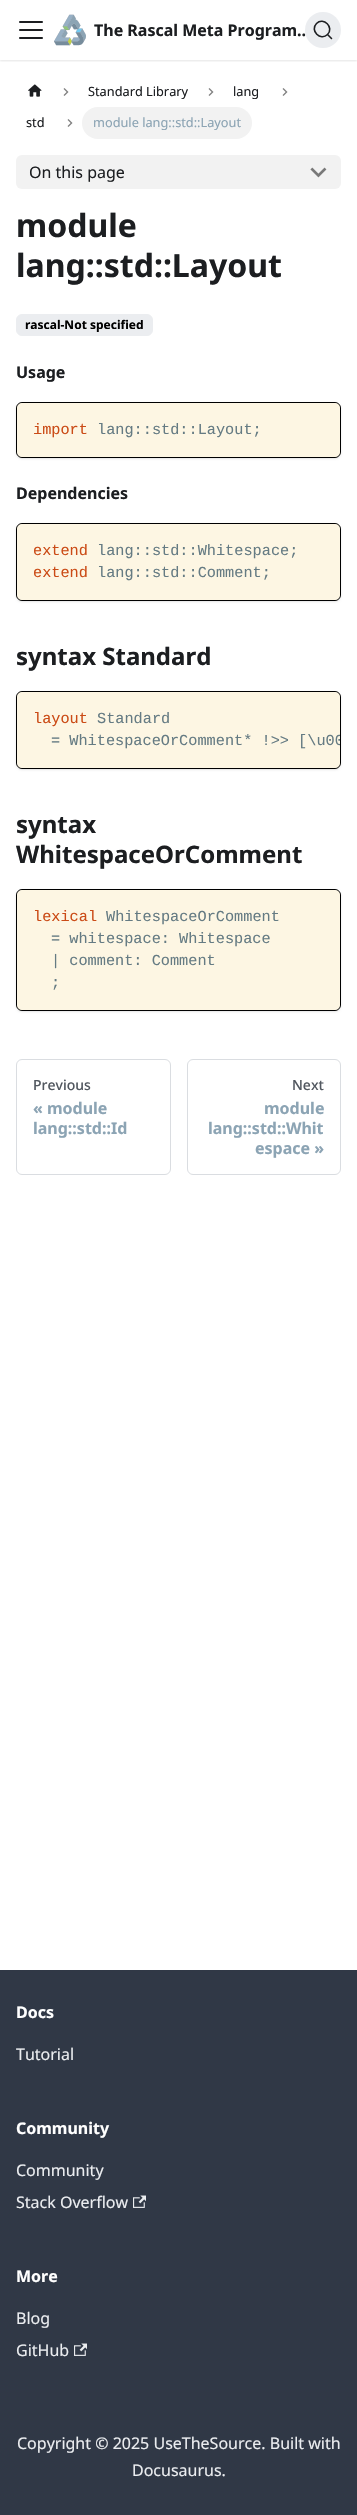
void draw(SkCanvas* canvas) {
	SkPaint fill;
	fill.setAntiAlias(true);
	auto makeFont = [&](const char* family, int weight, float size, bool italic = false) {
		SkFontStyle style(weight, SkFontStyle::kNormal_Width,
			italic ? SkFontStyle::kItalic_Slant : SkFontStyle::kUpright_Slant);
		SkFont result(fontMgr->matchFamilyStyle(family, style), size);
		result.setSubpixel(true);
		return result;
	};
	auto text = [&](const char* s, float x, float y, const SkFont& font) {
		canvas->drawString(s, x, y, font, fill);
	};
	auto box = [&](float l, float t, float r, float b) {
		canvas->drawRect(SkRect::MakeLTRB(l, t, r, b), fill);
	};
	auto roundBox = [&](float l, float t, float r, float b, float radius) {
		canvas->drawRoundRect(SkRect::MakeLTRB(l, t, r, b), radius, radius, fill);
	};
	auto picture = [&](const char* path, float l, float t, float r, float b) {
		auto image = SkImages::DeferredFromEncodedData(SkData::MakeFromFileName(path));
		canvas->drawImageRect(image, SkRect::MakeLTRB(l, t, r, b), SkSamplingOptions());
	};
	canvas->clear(0xFFFFFFFF);
	canvas->save();
	canvas->clipRect(SkRect::MakeLTRB(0, 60, 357, 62));
	fill.setColor(0x1A000000);
	fill.setMaskFilter(SkMaskFilter::MakeBlur(kNormal_SkBlurStyle, 1));
	canvas->drawRect(SkRect::MakeLTRB(0, 1, 357, 61), fill);
	fill.setMaskFilter(nullptr);
	canvas->restore();
	picture("image0.png", 19, 21, 43, 39);
	picture("image1.png", 54, 14, 86, 46);
	picture("image2.png", 28, 84, 42, 97);
	picture("image3.png", 63, 88, 69, 96);
	picture("image3.png", 208, 88, 214, 96);
	picture("image3.png", 282, 88, 288, 96);
	picture("image3.png", 67, 119, 73, 127);
	fill.setColor(0xFFF2F2F2);
	roundBox(82, 107, 252, 139, 16);
	roundBox(16, 155, 341, 189, 6);
	picture("image4.png", 310, 167, 327, 178);
	fill.setColor(0xFFEBEDF0);
	canvas->drawRoundRect(SkRect::MakeLTRB(16.5f, 314.5f, 152.5f, 335.5f), 5.5f, 5.5f, fill);
	fill.setStyle(SkPaint::kStroke_Style);
	fill.setStrokeWidth(1);
	canvas->drawRoundRect(SkRect::MakeLTRB(16.5f, 314.5f, 152.5f, 335.5f), 5.5f, 5.5f, fill);
	fill.setStyle(SkPaint::kFill_Style);
	fill.setColor(0x1A000000);
	fill.setMaskFilter(SkMaskFilter::MakeBlur(kNormal_SkBlurStyle, 1));
	canvas->drawRoundRect(SkRect::MakeLTRB(16, 403, 341, 459), 6, 6, fill);
	fill.setMaskFilter(nullptr);
	fill.setColor(0xFFFDF6E3);
	canvas->drawRoundRect(SkRect::MakeLTRB(16.5f, 402.5f, 340.5f, 457.5f), 5.5f, 5.5f, fill);
	fill.setStyle(SkPaint::kStroke_Style);
	fill.setColor(0xFF000000);
	canvas->drawRoundRect(SkRect::MakeLTRB(16.5f, 402.5f, 340.5f, 457.5f), 5.5f, 5.5f, fill);
	fill.setStyle(SkPaint::kFill_Style);
	fill.setColor(0xFFFDF6E3);
	roundBox(17, 403, 340, 457, 6);
	fill.setColor(0x1A000000);
	fill.setMaskFilter(SkMaskFilter::MakeBlur(kNormal_SkBlurStyle, 1));
	canvas->drawRoundRect(SkRect::MakeLTRB(16, 524, 341, 602), 6, 6, fill);
	fill.setMaskFilter(nullptr);
	fill.setColor(0xFFFDF6E3);
	canvas->drawRoundRect(SkRect::MakeLTRB(16.5f, 523.5f, 340.5f, 600.5f), 5.5f, 5.5f, fill);
	fill.setStyle(SkPaint::kStroke_Style);
	fill.setColor(0xFF000000);
	canvas->drawRoundRect(SkRect::MakeLTRB(16.5f, 523.5f, 340.5f, 600.5f), 5.5f, 5.5f, fill);
	fill.setStyle(SkPaint::kFill_Style);
	fill.setColor(0xFFFDF6E3);
	roundBox(17, 524, 340, 600, 6);
	fill.setColor(0x1A000000);
	fill.setMaskFilter(SkMaskFilter::MakeBlur(kNormal_SkBlurStyle, 1));
	canvas->drawRoundRect(SkRect::MakeLTRB(16, 692, 341, 770), 6, 6, fill);
	fill.setMaskFilter(nullptr);
	fill.setColor(0xFFFDF6E3);
	canvas->drawRoundRect(SkRect::MakeLTRB(16.5f, 691.5f, 340.5f, 768.5f), 5.5f, 5.5f, fill);
	fill.setStyle(SkPaint::kStroke_Style);
	fill.setColor(0xFF000000);
	canvas->drawRoundRect(SkRect::MakeLTRB(16.5f, 691.5f, 340.5f, 768.5f), 5.5f, 5.5f, fill);
	fill.setStyle(SkPaint::kFill_Style);
	fill.setColor(0xFFFDF6E3);
	roundBox(17, 692, 340, 768, 6);
	fill.setColor(0x1A000000);
	fill.setMaskFilter(SkMaskFilter::MakeBlur(kNormal_SkBlurStyle, 1));
	canvas->drawRoundRect(SkRect::MakeLTRB(16, 890, 341, 1012), 6, 6, fill);
	fill.setMaskFilter(nullptr);
	fill.setColor(0xFFFDF6E3);
	canvas->drawRoundRect(SkRect::MakeLTRB(16.5f, 889.5f, 340.5f, 1010.5f), 5.5f, 5.5f, fill);
	fill.setStyle(SkPaint::kStroke_Style);
	fill.setColor(0xFF000000);
	canvas->drawRoundRect(SkRect::MakeLTRB(16.5f, 889.5f, 340.5f, 1010.5f), 5.5f, 5.5f, fill);
	fill.setStyle(SkPaint::kFill_Style);
	fill.setColor(0xFFFDF6E3);
	roundBox(17, 890, 340, 1010, 6);
	fill.setStyle(SkPaint::kStroke_Style);
	fill.setColor(0xFFDADDE1);
	canvas->drawRoundRect(SkRect::MakeLTRB(16.5f, 1059.5f, 170.5f, 1174.5f), 5.5f, 5.5f, fill);
	canvas->drawRoundRect(SkRect::MakeLTRB(187.5f, 1059.5f, 340.5f, 1174.5f), 5.5f, 5.5f, fill);
	fill.setStyle(SkPaint::kFill_Style);
	fill.setColor(0xFF303846);
	box(0, 1970, 357, 2515);
	picture("image5.png", 133, 2195, 146, 2208);
	picture("image5.png", 74, 2343, 87, 2356);
	auto font1 = makeFont("Noto Sans", 700, 16);
	fill.setColor(0xFF1C1E21);
	text("The Rascal Meta Program…", 94, 36, font1);
	fill.setColor(0xFFEBEDF0);
	canvas->drawCircle(323, 30, 18, fill);
	fill.setStyle(SkPaint::kStroke_Style);
	fill.setStrokeWidth(1.6f);
	fill.setStrokeCap(SkPaint::kRound_Cap);
	fill.setStrokeJoin(SkPaint::kRound_Join);
	fill.setColor(0xFF1C1E21);
	canvas->drawPath(SkPathBuilder().moveTo(327.5f, 34.5f).lineTo(331.5f, 38.5f).lineTo(327.5f, 34.5f).cubicTo(320.5f, 41.5f, 309.5f, 30.5f, 316.5f, 23.5f).cubicTo(323.5f, 16.5f, 334.5f, 27.5f, 327.5f, 34.5f).close().detach(), fill);
	auto font2 = makeFont("Noto Sans", 400, 12.75f);
	fill.setStyle(SkPaint::kFill_Style);
	text("Standard Library", 88, 96, font2);
	text("lang", 233, 96, font2);
	text("std", 26, 127, font2);
	fill.setColor(0xFF8CA4B4);
	text("module lang::std::Layout", 93, 127, font2);
	auto font3 = makeFont("Noto Sans", 400, 16);
	fill.setColor(0xFF1C1E21);
	text("On this page", 29, 178, font3);
	auto font4 = makeFont("Noto Sans", 700, 32);
	text("module", 16, 237, font4);
	text("lang::std::Layout", 16, 277, font4);
	auto font5 = makeFont("Noto Sans", 700, 12);
	fill.setColor(0xFF000000);
	text("rascal-Not specified", 25, 329, font5);
	fill.setColor(0xFF1C1E21);
	text("Usage", 16, 378, font1);
	auto font6 = makeFont("Liberation Mono", 400, 15.25f);
	fill.setColor(0xFFCB4B16);
	text("import", 33, 434, font6);
	fill.setColor(0xFF657B83);
	text("lang::std::Layout;", 97, 434, font6);
	fill.setColor(0xFF1C1E21);
	text("Dependencies", 16, 499, font1);
	fill.setColor(0xFFCB4B16);
	text("extend", 33, 555, font6);
	fill.setColor(0xFF657B83);
	text("lang::std::Whitespace;", 97, 555, font6);
	fill.setColor(0xFFCB4B16);
	text("extend", 33, 577, font6);
	fill.setColor(0xFF657B83);
	text("lang::std::Comment;", 97, 577, font6);
	auto font7 = makeFont("Noto Sans", 700, 24);
	fill.setColor(0xFF1C1E21);
	text("syntax Standard", 16, 665, font7);
	fill.setColor(0xFFCB4B16);
	text("layout", 33, 723, font6);
	fill.setColor(0xFF657B83);
	text("Standard", 97, 723, font6);
	canvas->save();
	canvas->clipPath(SkPathBuilder().moveTo(23, 692).lineTo(334, 692).cubicTo(337.5f, 692, 340, 694.5f, 340, 698).lineTo(340, 762).cubicTo(340, 765.5f, 337.5f, 768, 334, 768).lineTo(23, 768).cubicTo(19.5f, 768, 17, 765.5f, 17, 762).lineTo(17, 698).cubicTo(17, 694.5f, 19.5f, 692, 23, 692).close().detach(), true);
	text("= WhitespaceOrComment* !>> [\\u00", 51, 745, font6);
	canvas->restore();
	fill.setColor(0xFF1C1E21);
	text("syntax", 16, 833, font7);
	text("WhitespaceOrComment", 16, 863, font7);
	fill.setColor(0xFFCB4B16);
	text("lexical", 33, 921, font6);
	fill.setColor(0xFF657B83);
	text("WhitespaceOrComment", 106, 921, font6);
	text("= whitespace: Whitespace", 51, 943, font6);
	text("| comment: Comment", 51, 965, font6);
	text(";", 51, 987, font6);
	auto font8 = makeFont("Noto Sans", 500, 14);
	fill.setColor(0xFF525860);
	text("Previous", 33, 1090, font8);
	fill.setColor(0xFF8CA4B4);
	text("« module", 33, 1114, font1);
	text("lang::std::Id", 33, 1134, font1);
	fill.setColor(0xFF525860);
	text("Next", 292, 1090, font8);
	fill.setColor(0xFF8CA4B4);
	text("module", 264, 1114, font1);
	text("lang::std::Whit", 208, 1134, font1);
	text("espace »", 255, 1154, font1);
	fill.setColor(0xFFFFFFFF);
	text("Docs", 16, 2018, font1);
	fill.setColor(0xFFEBEDF0);
	text("Tutorial", 16, 2060, font3);
	fill.setColor(0xFFFFFFFF);
	text("Community", 16, 2134, font1);
	fill.setColor(0xFFEBEDF0);
	text("Community", 16, 2176, font3);
	text("Stack Overflow", 16, 2208, font3);
	fill.setColor(0xFFFFFFFF);
	text("More", 16, 2282, font1);
	fill.setColor(0xFFEBEDF0);
	text("Blog", 16, 2324, font3);
	text("GitHub", 16, 2356, font3);
	text("Copyright © 2025 UseTheSource. Built with", 17, 2449, font3);
	text("Docusaurus.", 132, 2476, font3);
}
